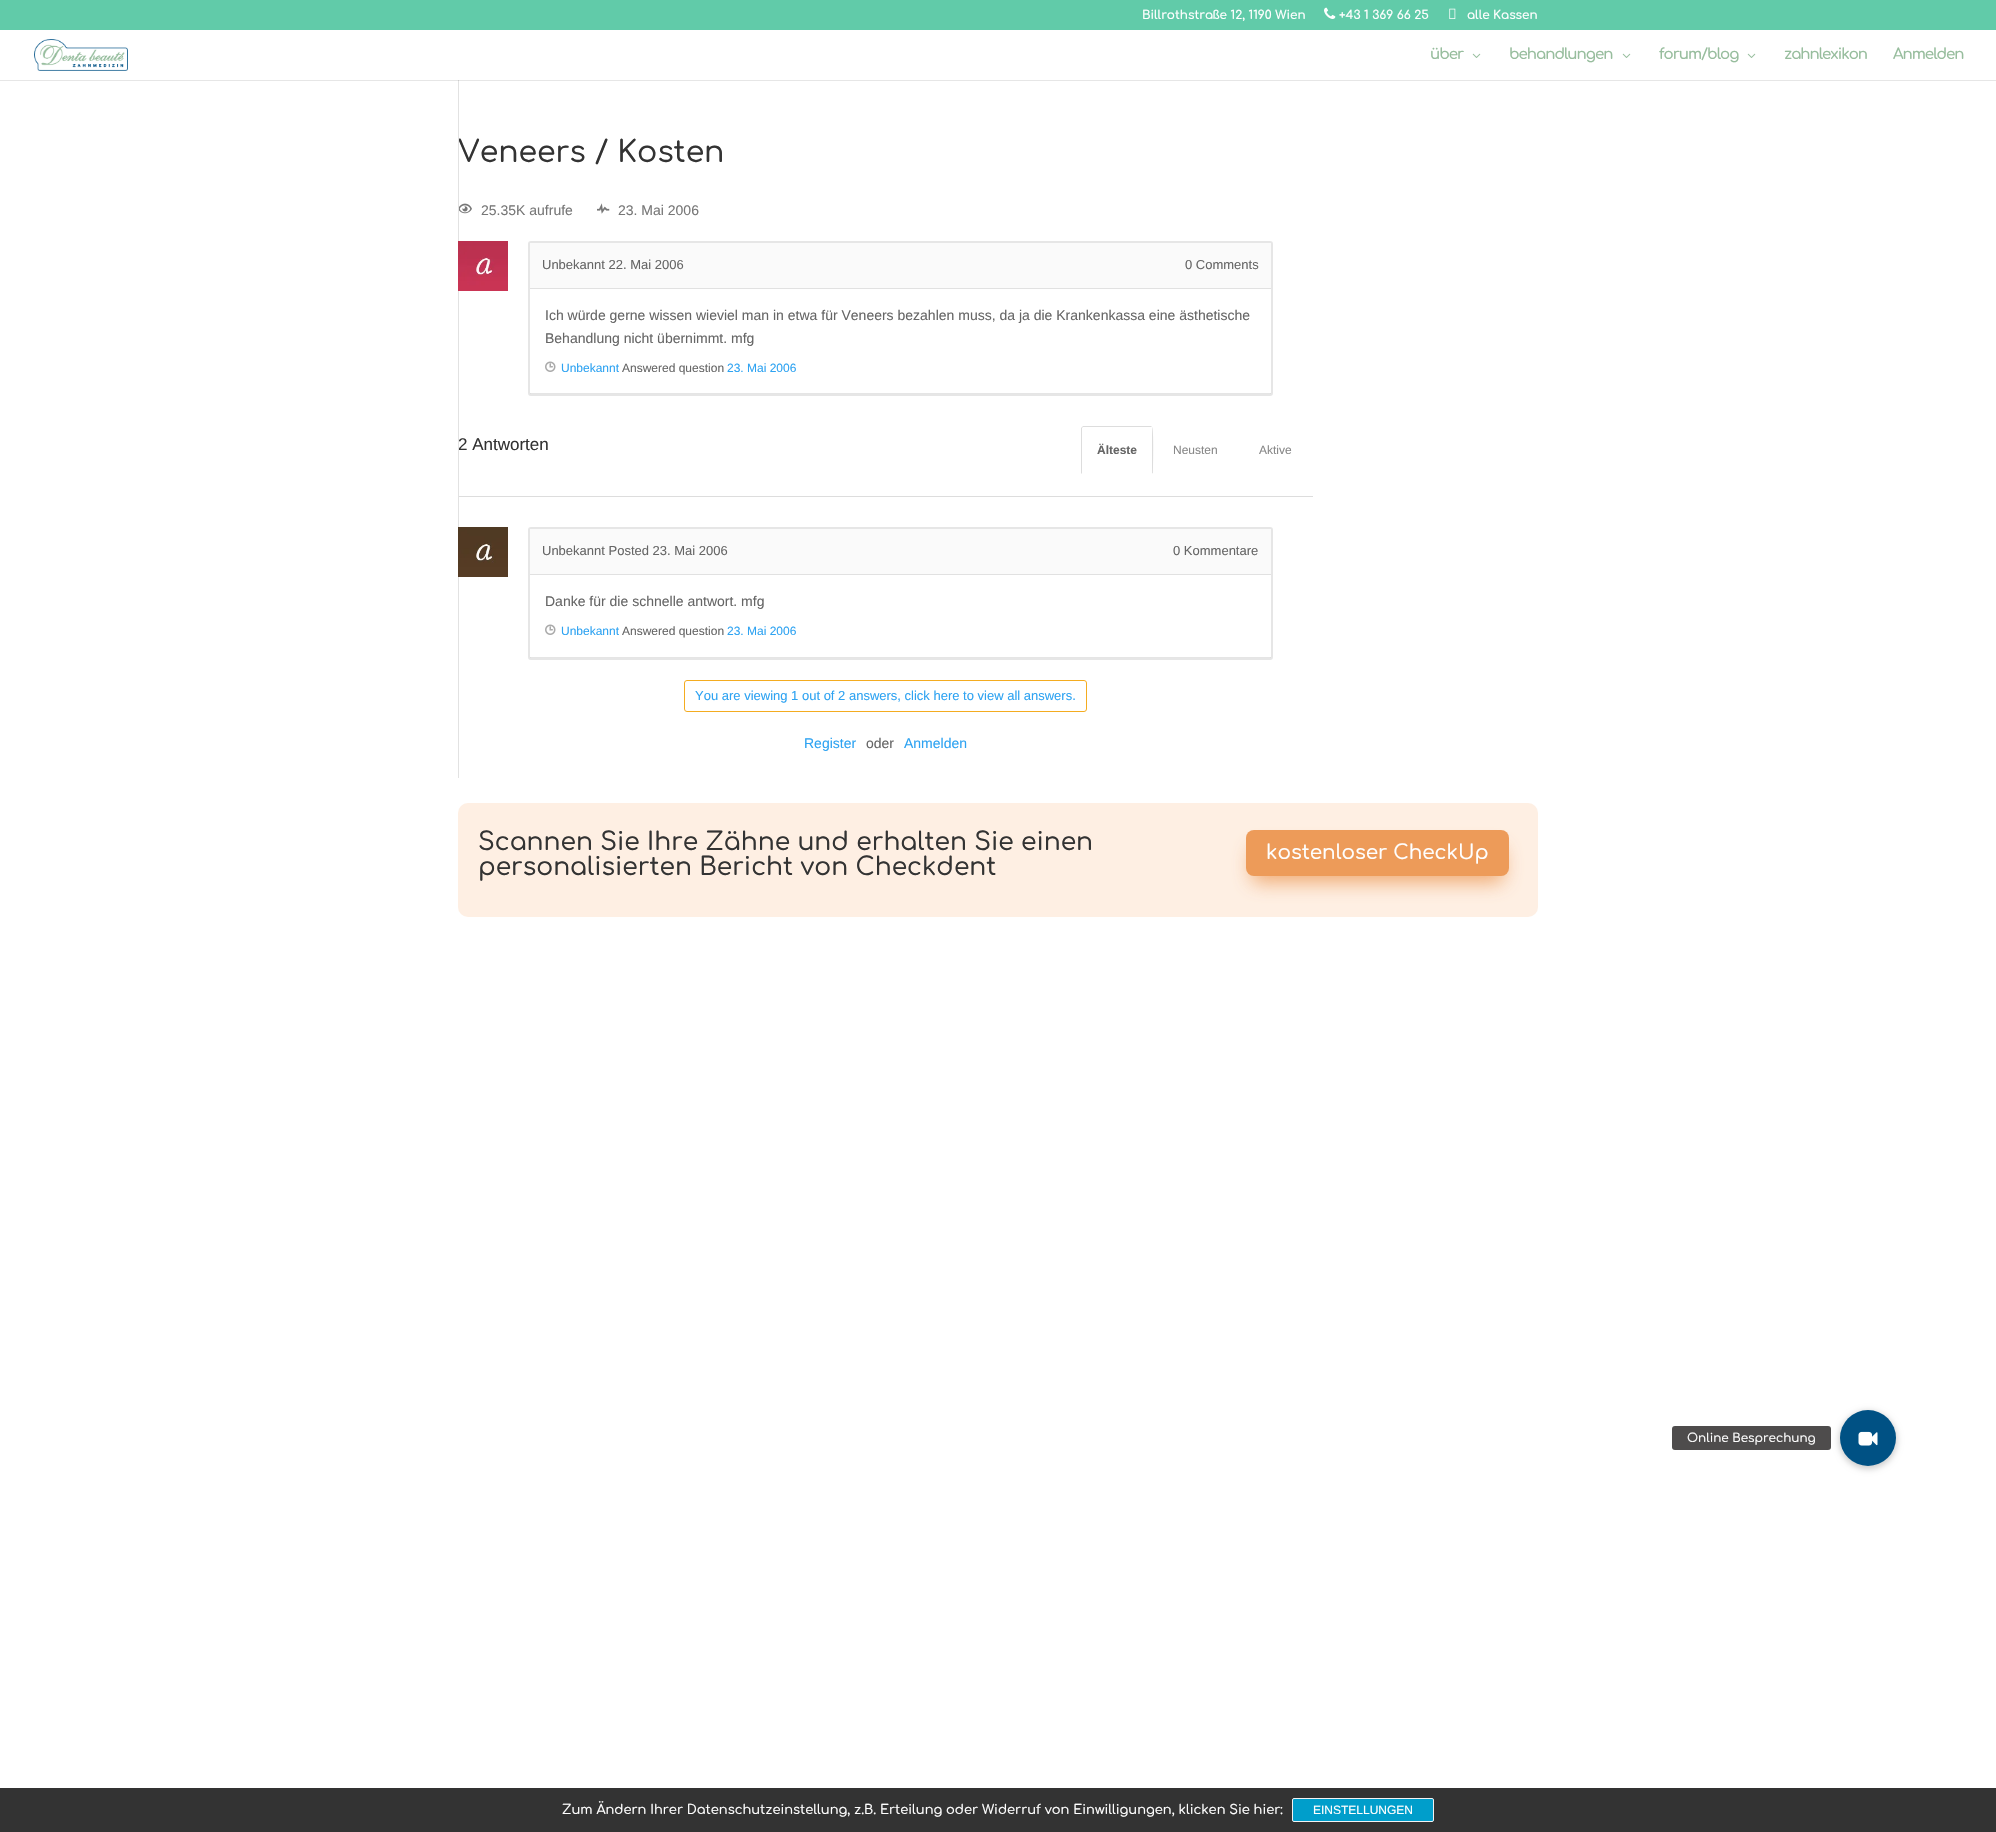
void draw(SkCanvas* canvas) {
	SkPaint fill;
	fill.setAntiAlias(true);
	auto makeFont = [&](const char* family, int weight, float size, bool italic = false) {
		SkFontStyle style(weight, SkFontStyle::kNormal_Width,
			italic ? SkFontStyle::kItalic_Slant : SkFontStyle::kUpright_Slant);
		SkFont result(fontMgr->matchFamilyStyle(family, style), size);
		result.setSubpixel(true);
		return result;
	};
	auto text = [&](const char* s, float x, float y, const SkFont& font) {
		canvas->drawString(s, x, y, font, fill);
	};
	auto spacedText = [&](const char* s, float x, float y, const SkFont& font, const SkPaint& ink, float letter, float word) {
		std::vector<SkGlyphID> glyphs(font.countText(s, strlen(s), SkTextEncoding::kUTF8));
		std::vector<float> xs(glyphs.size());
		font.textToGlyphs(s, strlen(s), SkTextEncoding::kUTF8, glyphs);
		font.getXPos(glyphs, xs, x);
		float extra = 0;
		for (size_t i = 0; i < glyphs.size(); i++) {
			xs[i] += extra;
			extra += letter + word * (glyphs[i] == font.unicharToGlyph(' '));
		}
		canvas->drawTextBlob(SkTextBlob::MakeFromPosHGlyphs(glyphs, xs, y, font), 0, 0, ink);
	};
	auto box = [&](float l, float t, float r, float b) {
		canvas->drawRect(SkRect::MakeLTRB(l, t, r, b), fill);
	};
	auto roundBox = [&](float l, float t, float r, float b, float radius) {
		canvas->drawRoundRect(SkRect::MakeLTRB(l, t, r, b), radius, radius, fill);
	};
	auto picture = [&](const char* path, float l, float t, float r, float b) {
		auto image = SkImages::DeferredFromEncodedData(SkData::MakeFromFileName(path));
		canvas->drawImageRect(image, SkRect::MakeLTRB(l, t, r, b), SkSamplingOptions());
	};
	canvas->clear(0xFFFFFFFF);
	fill.setColor(0xFFE6E6E6);
	box(0, 80, 1996, 81);
	fill.setColor(0xFF61CBA9);
	box(0, 0, 1996, 30);
	picture("image0.png", 1324, 7, 1336, 19);
	picture("image1.png", 1449, 8, 1456, 19);
	picture("image2.png", 34, 39, 128, 71);
	picture("image3.png", 1472, 53, 1481, 58);
	picture("image3.png", 1622, 53, 1631, 58);
	picture("image3.png", 1747, 53, 1756, 58);
	picture("image4.png", 459, 203, 472, 214);
	picture("image5.png", 597, 203, 610, 214);
	fill.setStyle(SkPaint::kStroke_Style);
	fill.setStrokeWidth(2);
	fill.setColor(0xFFE6E6E6);
	canvas->drawRoundRect(SkRect::MakeLTRB(529, 242, 1272, 395), 2, 2, fill);
	fill.setStyle(SkPaint::kFill_Style);
	fill.setColor(0xFFFAFAFA);
	box(530, 243, 1271, 288);
	fill.setColor(0xFFE1E1E1);
	box(530, 288, 1271, 289);
	picture("image7.png", 545, 361, 556, 372);
	fill.setColor(0x1A000000);
	box(530, 393, 1271, 394);
	fill.setColor(0xFFDDDDDD);
	box(458, 496, 1313, 497);
	canvas->drawPath(SkPathBuilder().moveTo(1083, 426).lineTo(1082, 427).lineTo(1082, 428).lineTo(1083, 427).lineTo(1152, 427).lineTo(1151, 426).close().detach(), fill);
	canvas->drawPath(SkPathBuilder().moveTo(1153, 474).cubicTo(1153, 469, 1154, 428, 1152, 427).lineTo(1152, 473).close().detach(), fill);
	fill.setColor(0xFFFFFFFF);
	canvas->drawPath(SkPathBuilder().moveTo(1153, 474).lineTo(1152, 473).lineTo(1082, 473).lineTo(1081, 474).close().detach(), fill);
	fill.setColor(0xFFDDDDDD);
	canvas->drawPath(SkPathBuilder().moveTo(1081, 474).lineTo(1082, 473).lineTo(1082, 428).lineTo(1082, 427).lineTo(1081, 428).close().detach(), fill);
	fill.setStyle(SkPaint::kStroke_Style);
	fill.setColor(0xFFE6E6E6);
	canvas->drawRoundRect(SkRect::MakeLTRB(529, 528, 1272, 659), 2, 2, fill);
	fill.setStyle(SkPaint::kFill_Style);
	fill.setColor(0xFFFAFAFA);
	box(530, 529, 1271, 574);
	fill.setColor(0xFFE1E1E1);
	box(530, 574, 1271, 575);
	picture("image7.png", 545, 624, 556, 635);
	fill.setColor(0x1A000000);
	box(530, 657, 1271, 658);
	fill.setStyle(SkPaint::kStroke_Style);
	fill.setStrokeWidth(1);
	fill.setColor(0xFFF4AC20);
	canvas->drawRoundRect(SkRect::MakeLTRB(684.5f, 680.5f, 1086.5f, 711.5f), 2.5f, 2.5f, fill);
	fill.setStyle(SkPaint::kFill_Style);
	fill.setColor(0xFFFEEFE3);
	roundBox(458, 803, 1538, 917, 10);
	fill.setColor(0xD9ED9B59);
	fill.setMaskFilter(SkMaskFilter::MakeBlur(kNormal_SkBlurStyle, 10));
	canvas->drawRoundRect(SkRect::MakeLTRB(1252, 848, 1503, 882), 2, 2, fill);
	fill.setMaskFilter(nullptr);
	fill.setColor(0xFFED9B59);
	roundBox(1246, 830, 1509, 876, 8);
	fill.setColor(0x33000000);
	fill.setMaskFilter(SkMaskFilter::MakeBlur(kNormal_SkBlurStyle, 3));
	canvas->drawRoundRect(SkRect::MakeLTRB(1839, 1411, 1897, 1469), 29, 29, fill);
	fill.setMaskFilter(nullptr);
	fill.setColor(0xFF005184);
	canvas->drawCircle(1868, 1438, 28, fill);
	fill.setColor(0xFF4E4C4C);
	roundBox(1672, 1426, 1831, 1450, 3);
	picture("image9.png", 1858, 1431, 1878, 1446);
	fill.setColor(0xFF333333);
	box(0, 1788, 1996, 1832);
	fill.setColor(0xFF009ECB);
	canvas->drawRoundRect(SkRect::MakeLTRB(1292.5f, 1798.5f, 1433.5f, 1821.5f), 1.5f, 1.5f, fill);
	fill.setStyle(SkPaint::kStroke_Style);
	fill.setColor(0xFFF3F3F3);
	canvas->drawRoundRect(SkRect::MakeLTRB(1292.5f, 1798.5f, 1433.5f, 1821.5f), 1.5f, 1.5f, fill);
	auto font1 = makeFont("Comfortaa", 600, 12);
	fill.setStyle(SkPaint::kFill_Style);
	fill.setColor(0xFFFFFFFF);
	text("Billrothstraße 12, 1190 Wien", 1142, 19, font1);
	text("+43 1 369 66 25", 1339, 19, font1);
	text("alle Kassen", 1467, 19, font1);
	auto font2 = makeFont("Comfortaa", 600, 15);
	fill.setColor(0xFF97BD9D);
	spacedText("über", 1430, 59, font2, fill, -1, 0);
	spacedText("behandlungen", 1509, 59, font2, fill, -1, 0);
	spacedText("forum/blog", 1659, 59, font2, fill, -1, 0);
	spacedText("zahnlexikon", 1784, 59, font2, fill, -1, 0);
	spacedText("Anmelden", 1893, 59, font2, fill, -1, 0);
	auto font3 = makeFont("Comfortaa", 500, 30);
	fill.setColor(0xFF333333);
	text("Veneers / Kosten", 458, 162, font3);
	auto font4 = makeFont("Liberation Sans", 400, 14);
	fill.setColor(0xFF777777);
	text("25.35K aufrufe", 481, 215, font4);
	text("23. Mai 2006", 618, 215, font4);
	auto font5 = makeFont("Liberation Sans", 400, 13);
	fill.setColor(0xFF666666);
	text("Unbekannt 22. Mai 2006", 542, 269, font5);
	text("0 Comments", 1185, 269, font5);
	text("Ich würde gerne wissen wieviel man in etwa für Veneers bezahlen muss, da ja die Krankenkassa eine ästhetische", 545, 320, font4);
	text("Behandlung nicht übernimmt. mfg", 545, 343, font4);
	auto font6 = makeFont("Liberation Sans", 400, 12);
	fill.setColor(0xFF2EA3F2);
	text("Unbekannt", 561, 372, font6);
	fill.setColor(0xFF666666);
	text("Answered question", 622, 372, font6);
	fill.setColor(0xFF2EA3F2);
	text("23. Mai 2006", 727, 372, font6);
	auto font7 = makeFont("Liberation Sans", 400, 17);
	fill.setColor(0xFF333333);
	text("2 Antworten", 458, 450, font7);
	fill.setColor(0xFFE2E2E2);
	box(458, 80, 459, 778);
	picture("image6.png", 458, 241, 508, 291);
	fill.setColor(0xFFCBCBCB);
	box(458, 80, 459, 81);
	auto font8 = makeFont("Liberation Sans", 700, 12);
	fill.setColor(0xFF666666);
	text("Älteste", 1097, 454, font8);
	fill.setColor(0xFF888888);
	text("Neusten", 1173, 454, font6);
	text("Aktive", 1259, 454, font6);
	picture("image8.png", 458, 527, 508, 577);
	fill.setColor(0xFF666666);
	text("Unbekannt Posted 23. Mai 2006", 542, 555, font5);
	text("0 Kommentare", 1173, 555, font5);
	text("Danke für die schnelle antwort. mfg", 545, 606, font4);
	fill.setColor(0xFF2EA3F2);
	text("Unbekannt", 561, 635, font6);
	fill.setColor(0xFF666666);
	text("Answered question", 622, 635, font6);
	fill.setColor(0xFF2EA3F2);
	text("23. Mai 2006", 727, 635, font6);
	text("You are viewing 1 out of 2 answers, click here to view all answers.", 695, 700, font5);
	text("Register", 804, 748, font4);
	fill.setColor(0xFF666666);
	text("oder", 866, 748, font4);
	fill.setColor(0xFF2EA3F2);
	text("Anmelden", 904, 748, font4);
	auto font9 = makeFont("Comfortaa", 500, 25);
	fill.setColor(0xFF333333);
	text("Scannen Sie Ihre Zähne und erhalten Sie einen", 478, 850, font9);
	text("personalisierten Bericht von Checkdent", 478, 875, font9);
	auto font10 = makeFont("Comfortaa", 500, 20);
	fill.setColor(0xFFFFFFFF);
	text("kostenloser CheckUp", 1266, 859, font10);
	auto font11 = makeFont("Comfortaa", 500, 12);
	text("Online Besprechung", 1687, 1442, font11);
	auto font12 = makeFont("Comfortaa", 500, 13);
	text("Zum Ändern Ihrer Datenschutzeinstellung, z.B. Erteilung oder Widerruf von Einwilligungen, klicken Sie hier:", 562, 1814, font12);
	text("EINSTELLUNGEN", 1313, 1814, font6);
}
